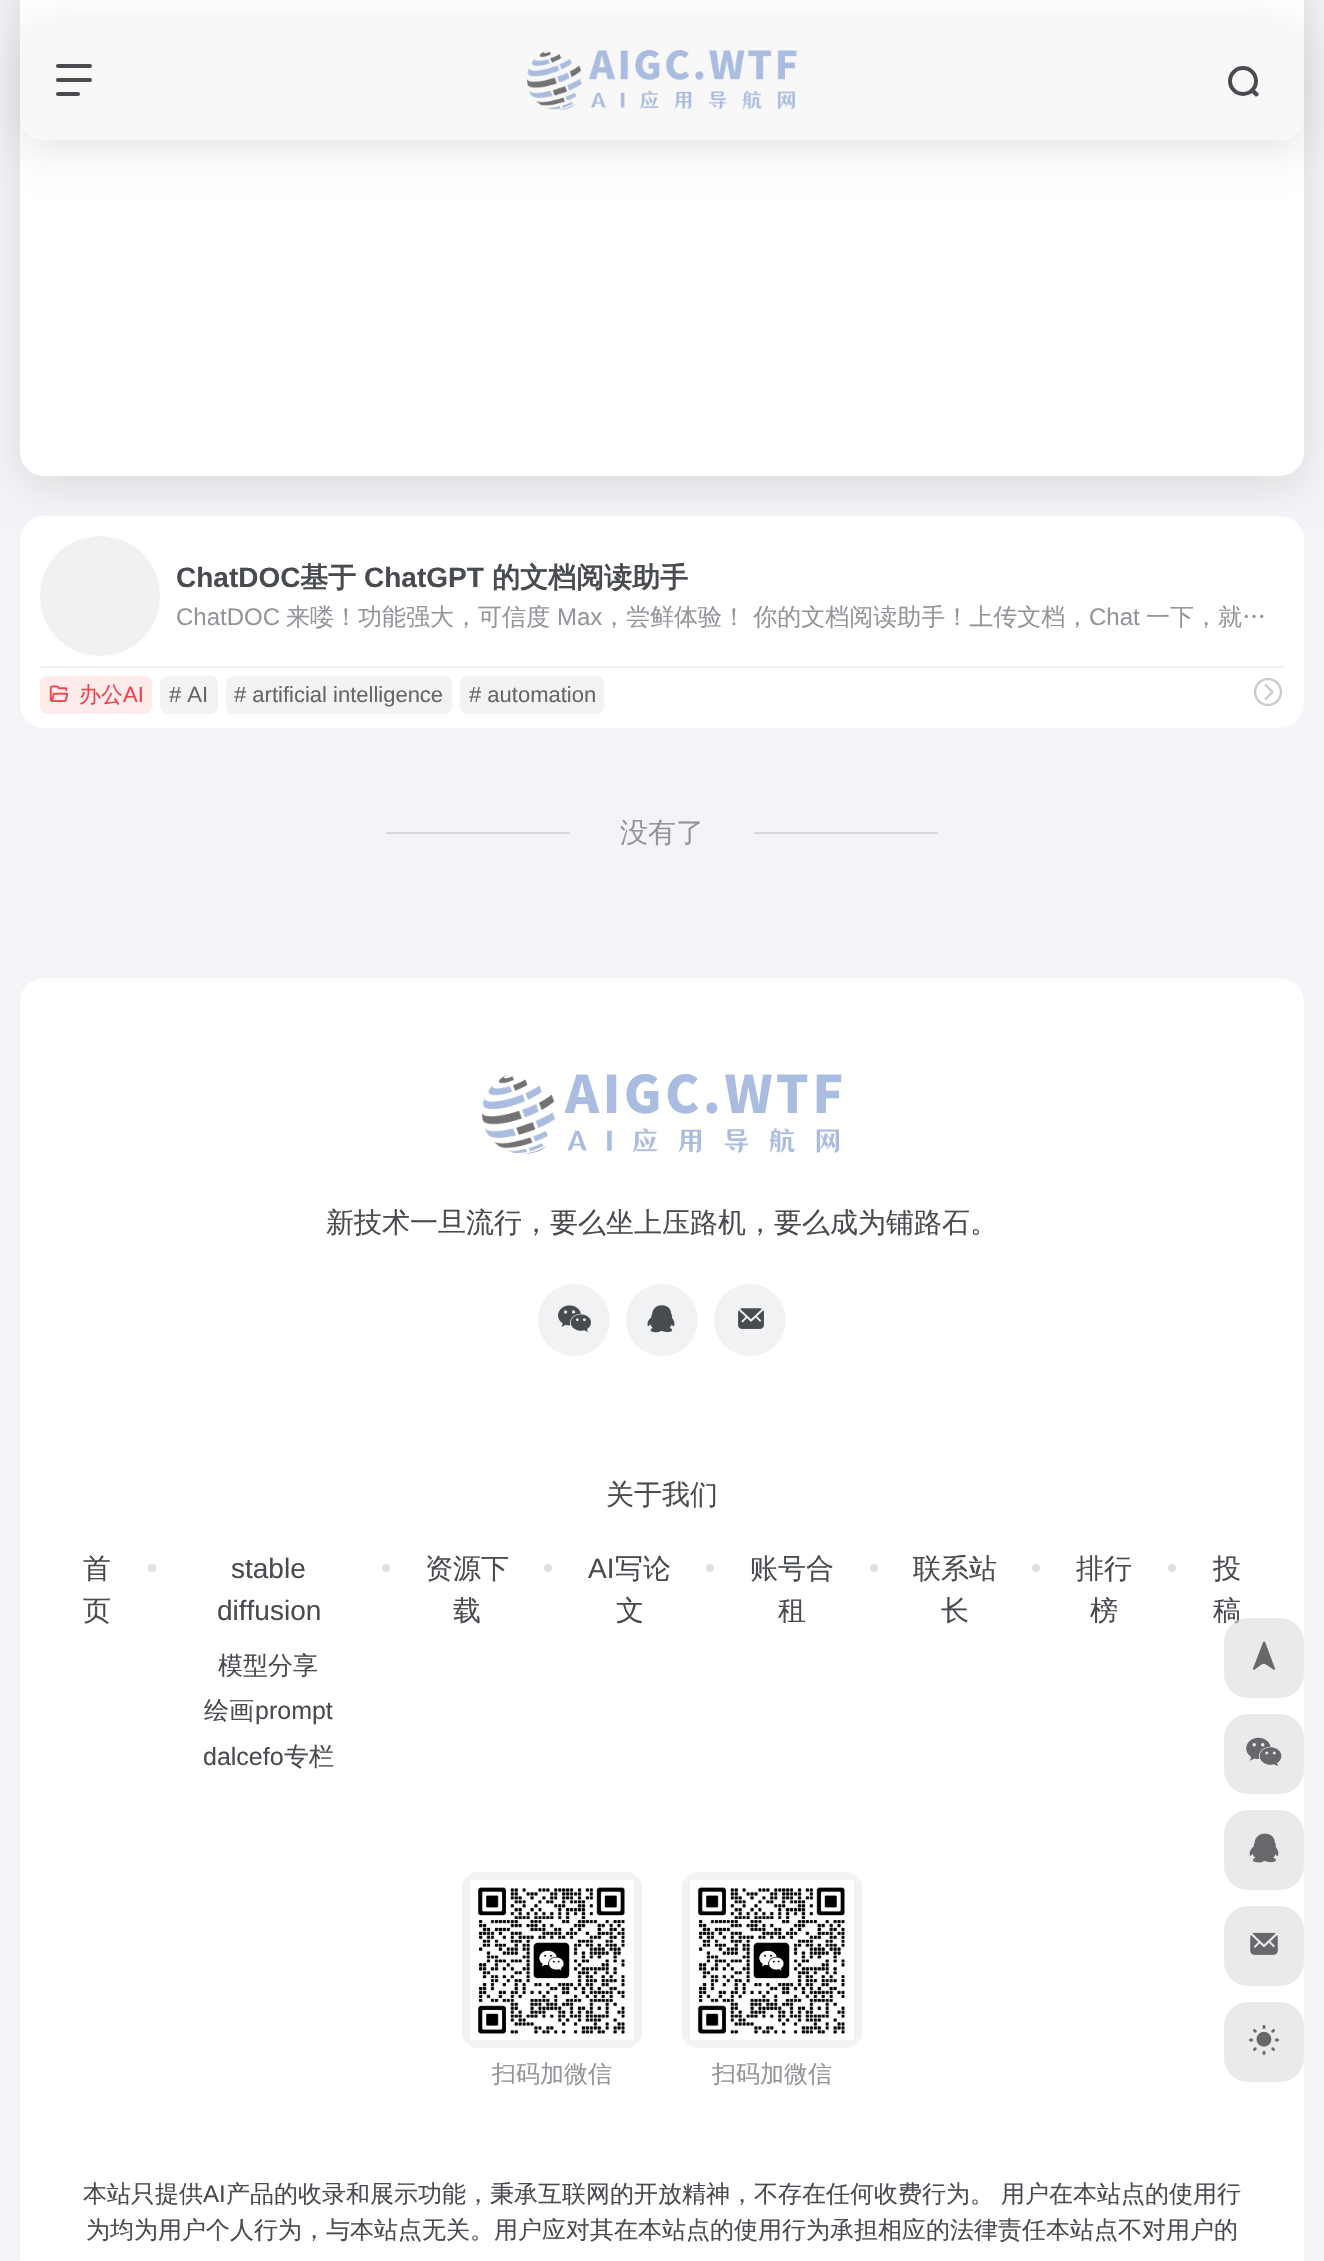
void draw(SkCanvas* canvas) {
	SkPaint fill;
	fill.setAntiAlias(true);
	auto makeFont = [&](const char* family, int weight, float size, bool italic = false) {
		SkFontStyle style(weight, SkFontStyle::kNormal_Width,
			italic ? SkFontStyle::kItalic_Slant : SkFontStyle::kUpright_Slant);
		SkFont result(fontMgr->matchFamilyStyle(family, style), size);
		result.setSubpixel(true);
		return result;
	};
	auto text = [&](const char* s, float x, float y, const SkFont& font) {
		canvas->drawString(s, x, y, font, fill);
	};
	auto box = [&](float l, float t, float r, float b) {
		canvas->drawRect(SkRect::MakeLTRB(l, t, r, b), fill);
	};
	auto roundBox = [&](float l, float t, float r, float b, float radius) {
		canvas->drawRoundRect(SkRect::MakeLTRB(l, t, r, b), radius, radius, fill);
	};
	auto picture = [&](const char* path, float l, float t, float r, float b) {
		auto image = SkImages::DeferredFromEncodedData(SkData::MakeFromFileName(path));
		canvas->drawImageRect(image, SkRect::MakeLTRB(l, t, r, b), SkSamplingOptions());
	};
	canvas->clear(0xFFF2F4F7);
	fill.setColor(0x1A000000);
	fill.setMaskFilter(SkMaskFilter::MakeBlur(kNormal_SkBlurStyle, 20));
	canvas->drawRoundRect(SkRect::MakeLTRB(20, -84, 1304, 486), 24, 24, fill);
	fill.setMaskFilter(nullptr);
	fill.setColor(0xFFFFFFFF);
	roundBox(20, -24, 1304, 476, 24);
	canvas->save();
	canvas->clipPath(SkPathBuilder(SkPathFillType::kEvenOdd).moveTo(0, 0).lineTo(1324, 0).lineTo(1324, 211).lineTo(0, 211).close().moveTo(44, 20).lineTo(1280, 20).cubicTo(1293.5f, 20, 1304, 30.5f, 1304, 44).lineTo(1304, 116).cubicTo(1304, 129.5f, 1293.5f, 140, 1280, 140).lineTo(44, 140).cubicTo(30.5f, 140, 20, 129.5f, 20, 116).lineTo(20, 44).cubicTo(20, 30.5f, 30.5f, 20, 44, 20).close().detach(), true);
	fill.setColor(0x1A000000);
	fill.setMaskFilter(SkMaskFilter::MakeBlur(kNormal_SkBlurStyle, 20));
	canvas->drawRoundRect(SkRect::MakeLTRB(20, 30, 1304, 150), 24, 24, fill);
	fill.setMaskFilter(nullptr);
	canvas->restore();
	fill.setColor(0xBFF5F5F5);
	roundBox(20, 20, 1304, 140, 24);
	fill.setColor(0xFF484B4F);
	roundBox(56, 64, 92, 68, 2);
	roundBox(56, 78, 92, 82, 2);
	roundBox(56, 92, 80, 96, 2);
	picture("image0.png", 527, 50, 797, 110);
	fill.setStyle(SkPaint::kStroke_Style);
	fill.setStrokeWidth(4);
	canvas->drawCircle(1243, 81, 13, fill);
	fill.setStyle(SkPaint::kFill_Style);
	canvas->drawPath(SkPathBuilder().moveTo(1255, 90).lineTo(1258.5f, 93.5f).cubicTo(1259, 95.5f, 1257.5f, 97, 1255.5f, 96.5f).lineTo(1251.5f, 92.5f).cubicTo(1251, 90.5f, 1253.5f, 88.5f, 1255, 90).close().detach(), fill);
	fill.setColor(0xFFFFFFFF);
	roundBox(20, 516, 1304, 728, 24);
	fill.setColor(0xFFF1F1F1);
	canvas->drawCircle(100, 596, 60, fill);
	box(40, 666, 1284, 668);
	fill.setColor(0xFFFEECED);
	roundBox(40, 676, 152, 714, 8);
	picture("image1.png", 49, 685, 69, 702);
	fill.setColor(0xFFF3F3F3);
	roundBox(160, 676, 218, 714, 8);
	roundBox(226, 676, 452, 714, 8);
	roundBox(460, 676, 604, 714, 8);
	picture("image2.png", 1254, 678, 1282, 706);
	fill.setColor(0xFFD6D8DB);
	box(386, 832, 570, 834);
	box(754, 832, 938, 834);
	fill.setColor(0xFFFFFFFF);
	roundBox(20, 978, 1304, 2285, 24);
	picture("image3.png", 482, 1074, 842, 1154);
	fill.setColor(0xFFF1F2F4);
	canvas->drawCircle(574, 1320, 36, fill);
	picture("image4.png", 558, 1305, 591, 1332);
	canvas->drawCircle(662, 1320, 36, fill);
	picture("image5.png", 647, 1305, 675, 1333);
	canvas->drawCircle(750, 1320, 36, fill);
	picture("image6.png", 738, 1308, 764, 1329);
	fill.setColor(0xFFDFDFE1);
	canvas->drawCircle(152, 1568, 4, fill);
	canvas->drawCircle(386, 1568, 4, fill);
	canvas->drawCircle(548, 1568, 4, fill);
	canvas->drawCircle(710, 1568, 4, fill);
	canvas->drawCircle(874, 1568, 4, fill);
	canvas->drawCircle(1036, 1568, 4, fill);
	canvas->drawCircle(1172, 1568, 4, fill);
	fill.setColor(0xFFF1F2F4);
	roundBox(462, 1872, 642, 2048, 16);
	picture("image7.png", 470, 1880, 634, 2040);
	roundBox(682, 1872, 862, 2048, 16);
	picture("image7.png", 690, 1880, 854, 2040);
	fill.setColor(0xFFEAEAEA);
	roundBox(1224, 1714, 1304, 1794, 24);
	picture("image9.png", 1246, 1737, 1282, 1767);
	roundBox(1224, 1810, 1304, 1890, 24);
	picture("image10.png", 1249, 1833, 1279, 1863);
	roundBox(1224, 1906, 1304, 1986, 24);
	picture("image11.png", 1250, 1932, 1278, 1955);
	roundBox(1224, 2002, 1304, 2082, 24);
	picture("image12.png", 1249, 2025, 1279, 2055);
	auto font1 = makeFont("Liberation Sans", 700, 28);
	fill.setColor(0xFF484B4F);
	text("ChatDOC", 176, 587, font1);
	auto font2 = makeFont("WenQuanYi Zen Hei", 700, 28);
	text("基于", 300, 587, font2);
	text("ChatGPT", 364, 587, font1);
	text("的文档阅读助手", 492, 587, font2);
	auto font3 = makeFont("Liberation Sans", 400, 24);
	fill.setColor(0xFF93959A);
	text("ChatDOC", 176, 625, font3);
	auto font4 = makeFont("WenQuanYi Zen Hei", 500, 24);
	text("来喽！功能强大，可信度", 286, 625, font4);
	text("Max", 557, 625, font3);
	text("，尝鲜体验！ 你的文档阅读助手！上传文档，", 602, 625, font4);
	text("Chat", 1089, 625, font3);
	text("一下，就…", 1146, 625, font4);
	auto font5 = makeFont("WenQuanYi Zen Hei", 500, 22);
	fill.setColor(0xFFF1404B);
	text("办公", 79, 702, font5);
	auto font6 = makeFont("Liberation Sans", 400, 22);
	text("AI", 123, 702, font6);
	fill.setColor(0xFF666666);
	text("# AI", 169, 702, font6);
	text("# artificial intelligence", 234, 702, font6);
	text("# automation", 469, 702, font6);
	auto font7 = makeFont("WenQuanYi Zen Hei", 500, 28);
	fill.setColor(0xFF93959A);
	text("没有了", 620, 842, font7);
	fill.setColor(0xFF484B4F);
	text("新技术一旦流行，要么坐上压路机，要么成为铺路石。", 326, 1232, font7);
	text("关于我们", 606, 1504, font7);
	text("首", 83, 1578, font7);
	text("页", 83, 1620, font7);
	auto font8 = makeFont("Liberation Sans", 400, 28);
	text("stable", 231, 1578, font8);
	text("diffusion", 217, 1620, font8);
	auto font9 = makeFont("WenQuanYi Zen Hei", 500, 25);
	text("模型分享", 218, 1674, font9);
	text("绘画", 204, 1719, font9);
	auto font10 = makeFont("Liberation Sans", 400, 25);
	text("prompt", 255, 1719, font10);
	text("dalcefo", 203, 1765, font10);
	text("专栏", 284, 1765, font9);
	text("资源下", 425, 1578, font7);
	text("载", 453, 1620, font7);
	text("AI", 588, 1578, font8);
	text("写论", 615, 1578, font7);
	text("文", 616, 1620, font7);
	text("账号合", 750, 1578, font7);
	text("租", 778, 1620, font7);
	text("联系站", 913, 1578, font7);
	text("长", 941, 1620, font7);
	text("排行", 1076, 1578, font7);
	text("榜", 1090, 1620, font7);
	text("投", 1213, 1578, font7);
	text("稿", 1213, 1620, font7);
	fill.setColor(0xFF93959A);
	text("扫码加微信", 492, 2082, font4);
	text("扫码加微信", 712, 2082, font4);
	fill.setColor(0xFF484B4F);
	text("本站只提供", 83, 2202, font4);
	text("AI", 203, 2202, font3);
	text("产品的收录和展示功能，秉承互联网的开放精神，不存在任何收费行为。", 226, 2202, font4);
	text("用户在本站点的使用行", 1001, 2202, font4);
	text("为均为用户个人行为，与本站点无关。用户应对其在本站点的使用行为承担相应的法律责任本站点不对用户的", 86, 2238, font4);
	fill.setColor(0x99DCDCDC);
	roundBox(1224, 1618, 1304, 1698, 24);
	picture("image8.png", 1252, 1641, 1275, 1670);
}
